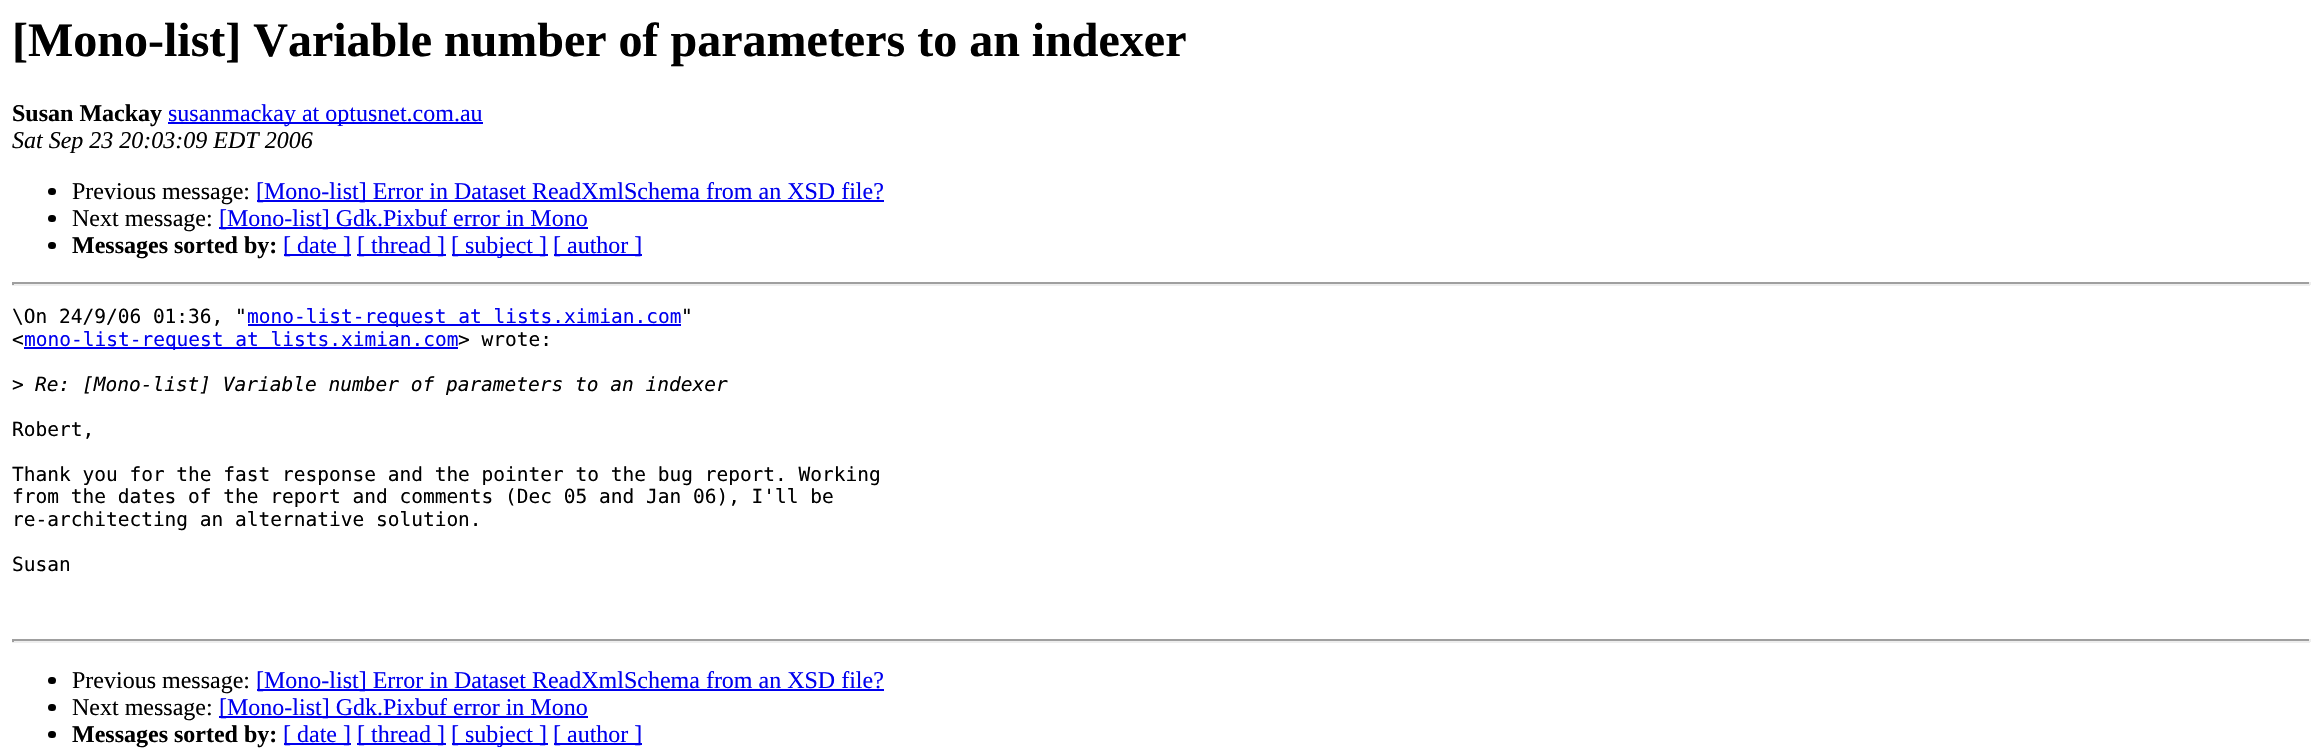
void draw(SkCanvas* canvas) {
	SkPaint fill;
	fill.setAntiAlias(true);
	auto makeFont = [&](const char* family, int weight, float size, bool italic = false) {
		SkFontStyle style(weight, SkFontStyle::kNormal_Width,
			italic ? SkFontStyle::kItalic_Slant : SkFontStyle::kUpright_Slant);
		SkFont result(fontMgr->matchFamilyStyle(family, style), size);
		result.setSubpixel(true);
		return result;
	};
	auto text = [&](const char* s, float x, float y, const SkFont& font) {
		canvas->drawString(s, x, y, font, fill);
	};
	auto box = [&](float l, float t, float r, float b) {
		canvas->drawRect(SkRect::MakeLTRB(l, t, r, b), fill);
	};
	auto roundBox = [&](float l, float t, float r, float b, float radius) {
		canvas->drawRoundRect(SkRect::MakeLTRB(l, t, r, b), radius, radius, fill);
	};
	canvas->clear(0xFFFFFFFF);
	fill.setColor(0xFF0000EE);
	box(168, 122, 483, 124);
	fill.setColor(0xFF000000);
	roundBox(48, 188, 56, 195, 3.5f);
	fill.setColor(0xFF0000EE);
	box(257, 200, 884, 202);
	fill.setColor(0xFF000000);
	roundBox(48, 215, 56, 222, 3.5f);
	fill.setColor(0xFF0000EE);
	box(219, 227, 588, 229);
	fill.setColor(0xFF000000);
	roundBox(48, 242, 56, 249, 3.5f);
	fill.setColor(0xFF0000EE);
	box(284, 254, 351, 256);
	box(357, 254, 446, 256);
	box(452, 254, 548, 256);
	box(554, 254, 642, 256);
	fill.setColor(0xFF9F9F9F);
	box(12, 282, 2310, 284);
	fill.setColor(0xFFEEEEEE);
	box(2309, 282, 2311, 285);
	box(12, 284, 2310, 286);
	fill.setColor(0xFF9F9F9F);
	box(12, 282, 14, 285);
	fill.setColor(0xFF0000EE);
	box(248, 324, 681, 326);
	box(24, 347, 458, 349);
	fill.setColor(0xFF9F9F9F);
	box(12, 639, 2310, 641);
	fill.setColor(0xFFEEEEEE);
	box(2309, 639, 2311, 642);
	box(12, 641, 2310, 643);
	fill.setColor(0xFF9F9F9F);
	box(12, 639, 14, 642);
	fill.setColor(0xFF000000);
	roundBox(48, 677, 56, 684, 3.5f);
	fill.setColor(0xFF0000EE);
	box(257, 689, 884, 691);
	fill.setColor(0xFF000000);
	roundBox(48, 704, 56, 711, 3.5f);
	fill.setColor(0xFF0000EE);
	box(219, 716, 588, 718);
	fill.setColor(0xFF000000);
	roundBox(48, 731, 56, 738, 3.5f);
	fill.setColor(0xFF0000EE);
	box(284, 743, 351, 745);
	box(357, 743, 446, 745);
	box(452, 743, 548, 745);
	box(554, 743, 642, 745);
	auto font1 = makeFont("Liberation Serif", 700, 48);
	fill.setColor(0xFF000000);
	text("[Mono-list] Variable number of parameters to an indexer", 12, 56, font1);
	auto font2 = makeFont("Liberation Serif", 700, 24);
	text("Susan Mackay", 12, 121, font2);
	auto font3 = makeFont("Liberation Serif", 400, 24);
	fill.setColor(0xFF0000EE);
	text("susanmackay at optusnet.com.au", 168, 121, font3);
	auto font4 = makeFont("Liberation Serif", 400, 24, true);
	fill.setColor(0xFF000000);
	text("Sat Sep 23 20:03:09 EDT 2006", 12, 148, font4);
	text("Previous message:", 72, 199, font3);
	fill.setColor(0xFF0000EE);
	text("[Mono-list] Error in Dataset ReadXmlSchema from an XSD file?", 256, 199, font3);
	fill.setColor(0xFF000000);
	text("Next message:", 72, 226, font3);
	fill.setColor(0xFF0000EE);
	text("[Mono-list] Gdk.Pixbuf error in Mono", 219, 226, font3);
	fill.setColor(0xFF000000);
	text("Messages sorted by:", 72, 253, font2);
	fill.setColor(0xFF0000EE);
	text("[ date ]", 283, 253, font3);
	text("[ thread ]", 357, 253, font3);
	text("[ subject ]", 451, 253, font3);
	text("[ author ]", 553, 253, font3);
	auto font5 = makeFont("DejaVu Sans Mono", 400, 19.5f);
	fill.setColor(0xFF000000);
	text("\\On 24/9/06 01:36, \"", 12, 323, font5);
	fill.setColor(0xFF0000EE);
	text("mono-list-request at lists.ximian.com", 247, 323, font5);
	fill.setColor(0xFF000000);
	text("\"", 681, 323, font5);
	text("<", 12, 346, font5);
	fill.setColor(0xFF0000EE);
	text("mono-list-request at lists.ximian.com", 24, 346, font5);
	fill.setColor(0xFF000000);
	text("> wrote:", 458, 346, font5);
	text(">", 12, 391, font5);
	auto font6 = makeFont("DejaVu Sans Mono", 400, 19.5f, true);
	text("Re: [Mono-list] Variable number of parameters to an indexer", 35, 391, font6);
	text("Robert,", 12, 436, font5);
	text("Thank you for the fast response and the pointer to the bug report. Working", 12, 481, font5);
	text("from the dates of the report and comments (Dec 05 and Jan 06), I'll be", 12, 503, font5);
	text("re-architecting an alternative solution.", 12, 526, font5);
	text("Susan", 12, 571, font5);
	text("Previous message:", 72, 688, font3);
	fill.setColor(0xFF0000EE);
	text("[Mono-list] Error in Dataset ReadXmlSchema from an XSD file?", 256, 688, font3);
	fill.setColor(0xFF000000);
	text("Next message:", 72, 715, font3);
	fill.setColor(0xFF0000EE);
	text("[Mono-list] Gdk.Pixbuf error in Mono", 219, 715, font3);
	fill.setColor(0xFF000000);
	text("Messages sorted by:", 72, 742, font2);
	fill.setColor(0xFF0000EE);
	text("[ date ]", 283, 742, font3);
	text("[ thread ]", 357, 742, font3);
	text("[ subject ]", 451, 742, font3);
	text("[ author ]", 553, 742, font3);
}
